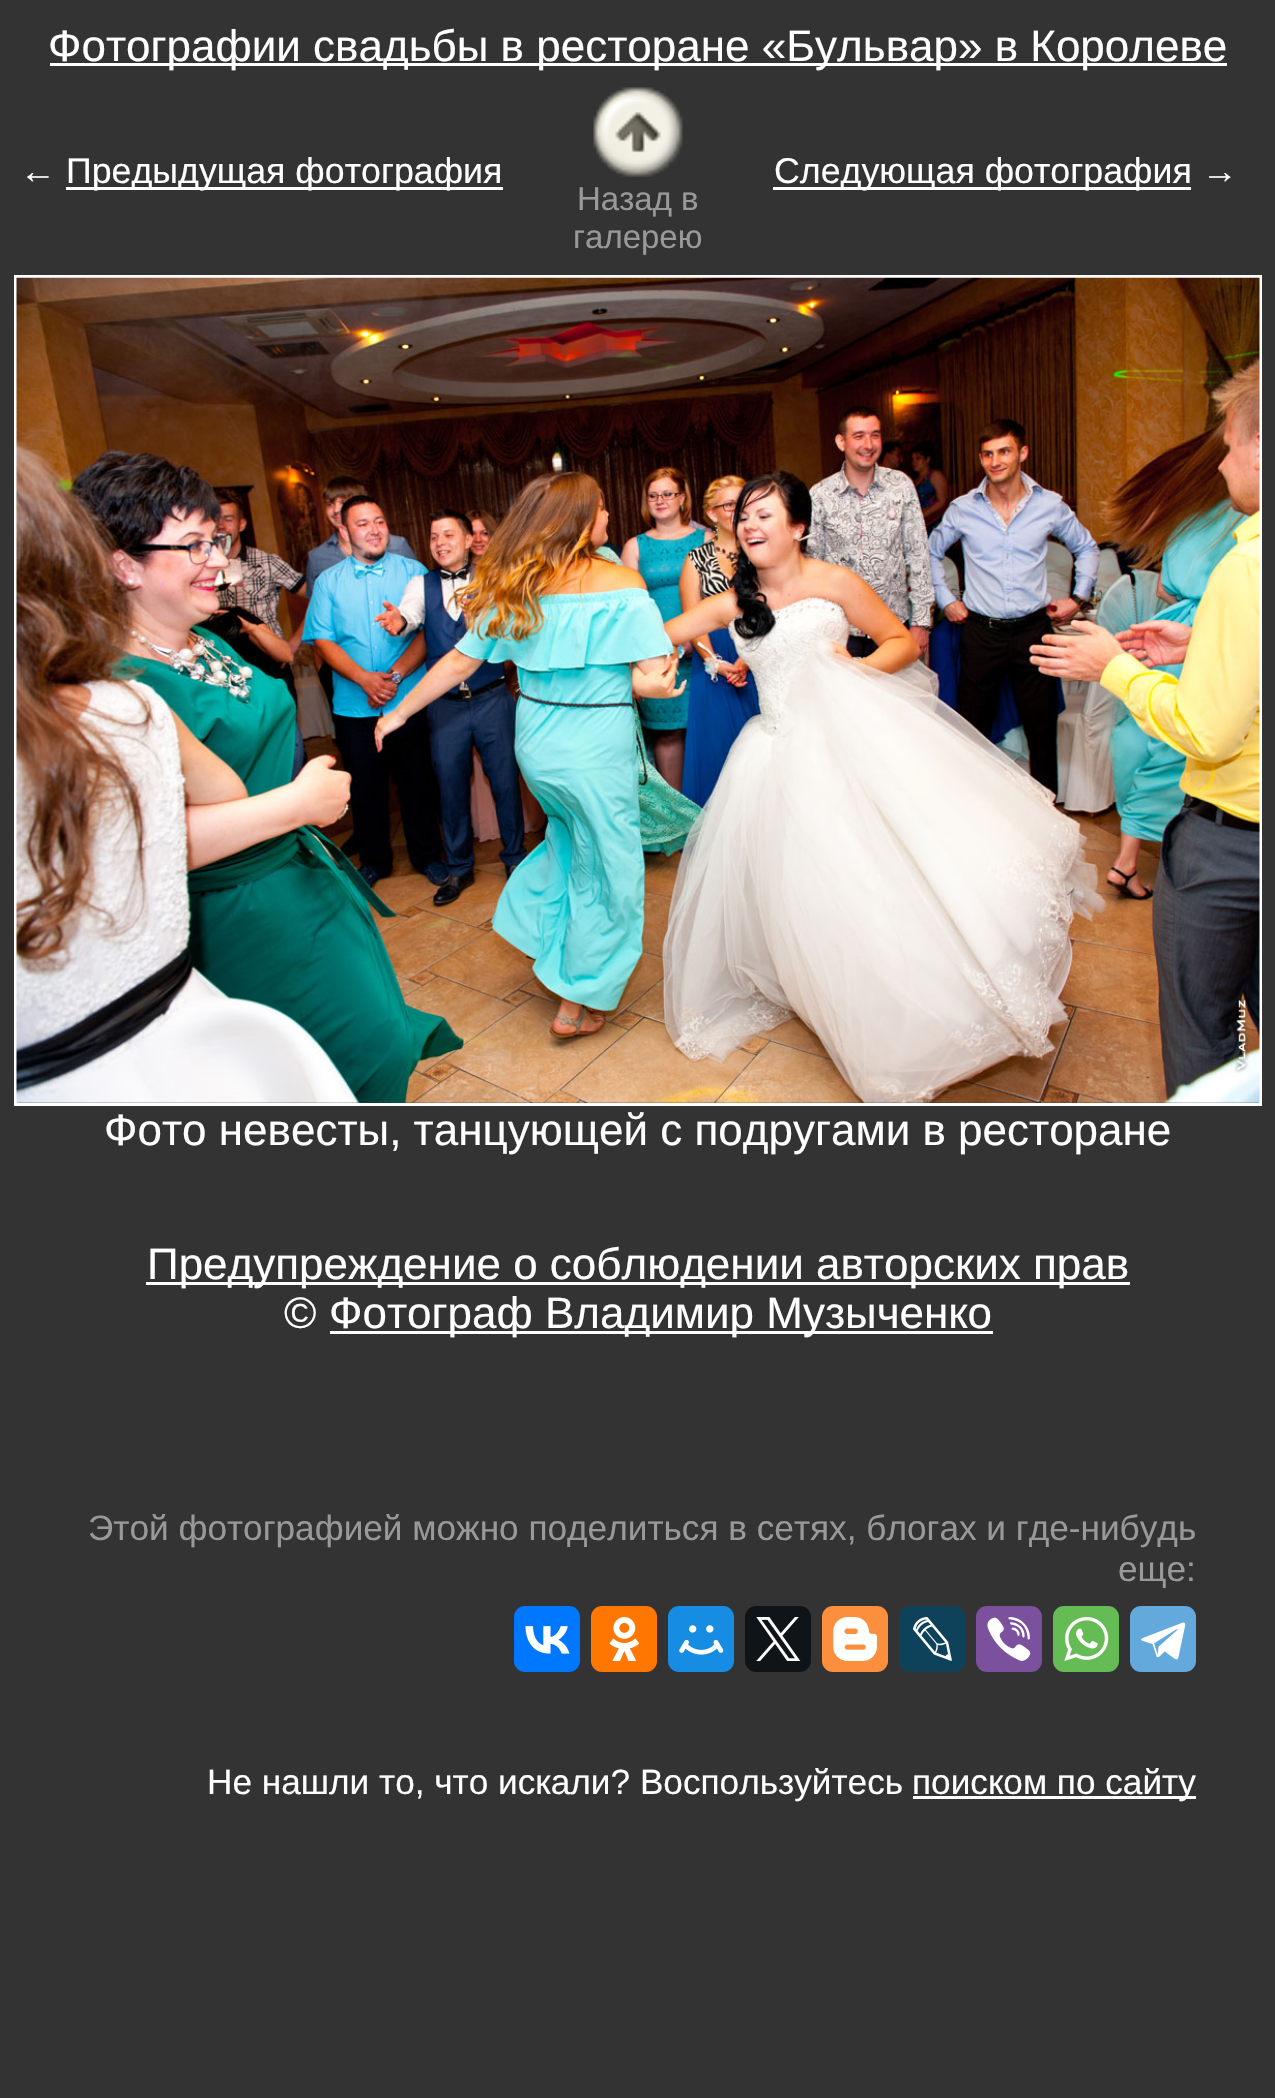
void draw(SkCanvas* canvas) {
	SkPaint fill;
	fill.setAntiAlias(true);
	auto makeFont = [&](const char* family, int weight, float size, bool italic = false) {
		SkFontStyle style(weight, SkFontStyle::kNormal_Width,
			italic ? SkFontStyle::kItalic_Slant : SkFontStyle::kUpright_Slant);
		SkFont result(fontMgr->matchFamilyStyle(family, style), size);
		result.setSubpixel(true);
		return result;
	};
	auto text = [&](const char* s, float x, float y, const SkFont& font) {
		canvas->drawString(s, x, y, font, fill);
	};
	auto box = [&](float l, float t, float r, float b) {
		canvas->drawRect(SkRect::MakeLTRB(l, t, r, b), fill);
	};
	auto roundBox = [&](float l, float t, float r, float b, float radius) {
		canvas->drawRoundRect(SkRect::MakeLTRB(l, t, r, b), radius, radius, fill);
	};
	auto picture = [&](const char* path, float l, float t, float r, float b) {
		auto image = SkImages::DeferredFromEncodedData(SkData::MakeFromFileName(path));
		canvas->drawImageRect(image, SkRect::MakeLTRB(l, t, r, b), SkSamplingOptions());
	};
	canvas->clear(0xFF333333);
	fill.setColor(0xFFFFFFFF);
	box(50, 63, 1227, 66);
	box(66, 187, 503, 190);
	box(773, 187, 1191, 190);
	picture("image0.png", 593, 87, 683, 177);
	fill.setStyle(SkPaint::kStroke_Style);
	fill.setStrokeWidth(3);
	canvas->drawRect(SkRect::MakeLTRB(15.5f, 276.5f, 1260.5f, 1104.5f), fill);
	picture("image1.png", 16, 277, 1260, 1103);
	fill.setStyle(SkPaint::kFill_Style);
	box(146, 1282, 1130, 1285);
	box(330, 1331, 993, 1334);
	fill.setColor(0xFF0077FF);
	roundBox(514, 1606, 580, 1672, 11);
	picture("image2.png", 525, 1626, 570, 1654);
	fill.setColor(0xFFFF7700);
	roundBox(591, 1606, 657, 1672, 11);
	picture("image3.png", 609, 1617, 640, 1661);
	fill.setColor(0xFF168DE2);
	roundBox(668, 1606, 734, 1672, 11);
	picture("image4.png", 679, 1625, 724, 1655);
	fill.setColor(0xFF0F1419);
	roundBox(745, 1606, 811, 1672, 11);
	picture("image5.png", 756, 1617, 801, 1661);
	fill.setColor(0xFFFB8F3D);
	roundBox(822, 1606, 888, 1672, 11);
	picture("image6.png", 833, 1617, 877, 1661);
	fill.setColor(0xFF0D425A);
	roundBox(899, 1606, 965, 1672, 11);
	picture("image7.png", 913, 1617, 952, 1661);
	fill.setColor(0xFF7B519D);
	roundBox(976, 1606, 1042, 1672, 11);
	picture("image8.png", 987, 1617, 1031, 1661);
	fill.setColor(0xFF65BC54);
	roundBox(1053, 1606, 1119, 1672, 11);
	picture("image9.png", 1064, 1617, 1109, 1661);
	fill.setColor(0xFF64A9DC);
	roundBox(1130, 1606, 1196, 1672, 11);
	picture("image10.png", 1141, 1622, 1186, 1660);
	fill.setColor(0xFFFFFFFF);
	box(913, 1796, 1196, 1799);
	auto font1 = makeFont("Liberation Sans", 400, 44);
	text("Фотографии свадьбы в ресторане «Бульвар» в Королеве", 48, 61, font1);
	auto font2 = makeFont("Liberation Sans", 400, 35.75f);
	text("←", 20, 183, font2);
	text("Предыдущая фотография", 66, 183, font2);
	text("Следующая фотография →", 774, 183, font2);
	auto font3 = makeFont("Liberation Sans", 400, 33);
	fill.setColor(0xFF999999);
	text("Назад в", 577, 210, font3);
	text("галерею", 573, 248, font3);
	fill.setColor(0xFFFFFFFF);
	text("Фото невесты, танцующей с подругами в ресторане", 104, 1145, font1);
	text("Предупреждение о соблюдении авторских прав", 147, 1279, font1);
	text("©", 284, 1328, font1);
	text("Фотограф Владимир Музыченко", 329, 1328, font1);
	auto font4 = makeFont("Liberation Sans", 400, 35.2f);
	fill.setColor(0xFF999999);
	text("Этой фотографией можно поделиться в сетях, блогах и где-нибудь", 88, 1540, font4);
	text("еще:", 1118, 1581, font4);
	fill.setColor(0xFFFFFFFF);
	text("Не нашли то, что искали? Воспользуйтесь", 207, 1794, font4);
	text("поиском по сайту", 912, 1794, font4);
}
